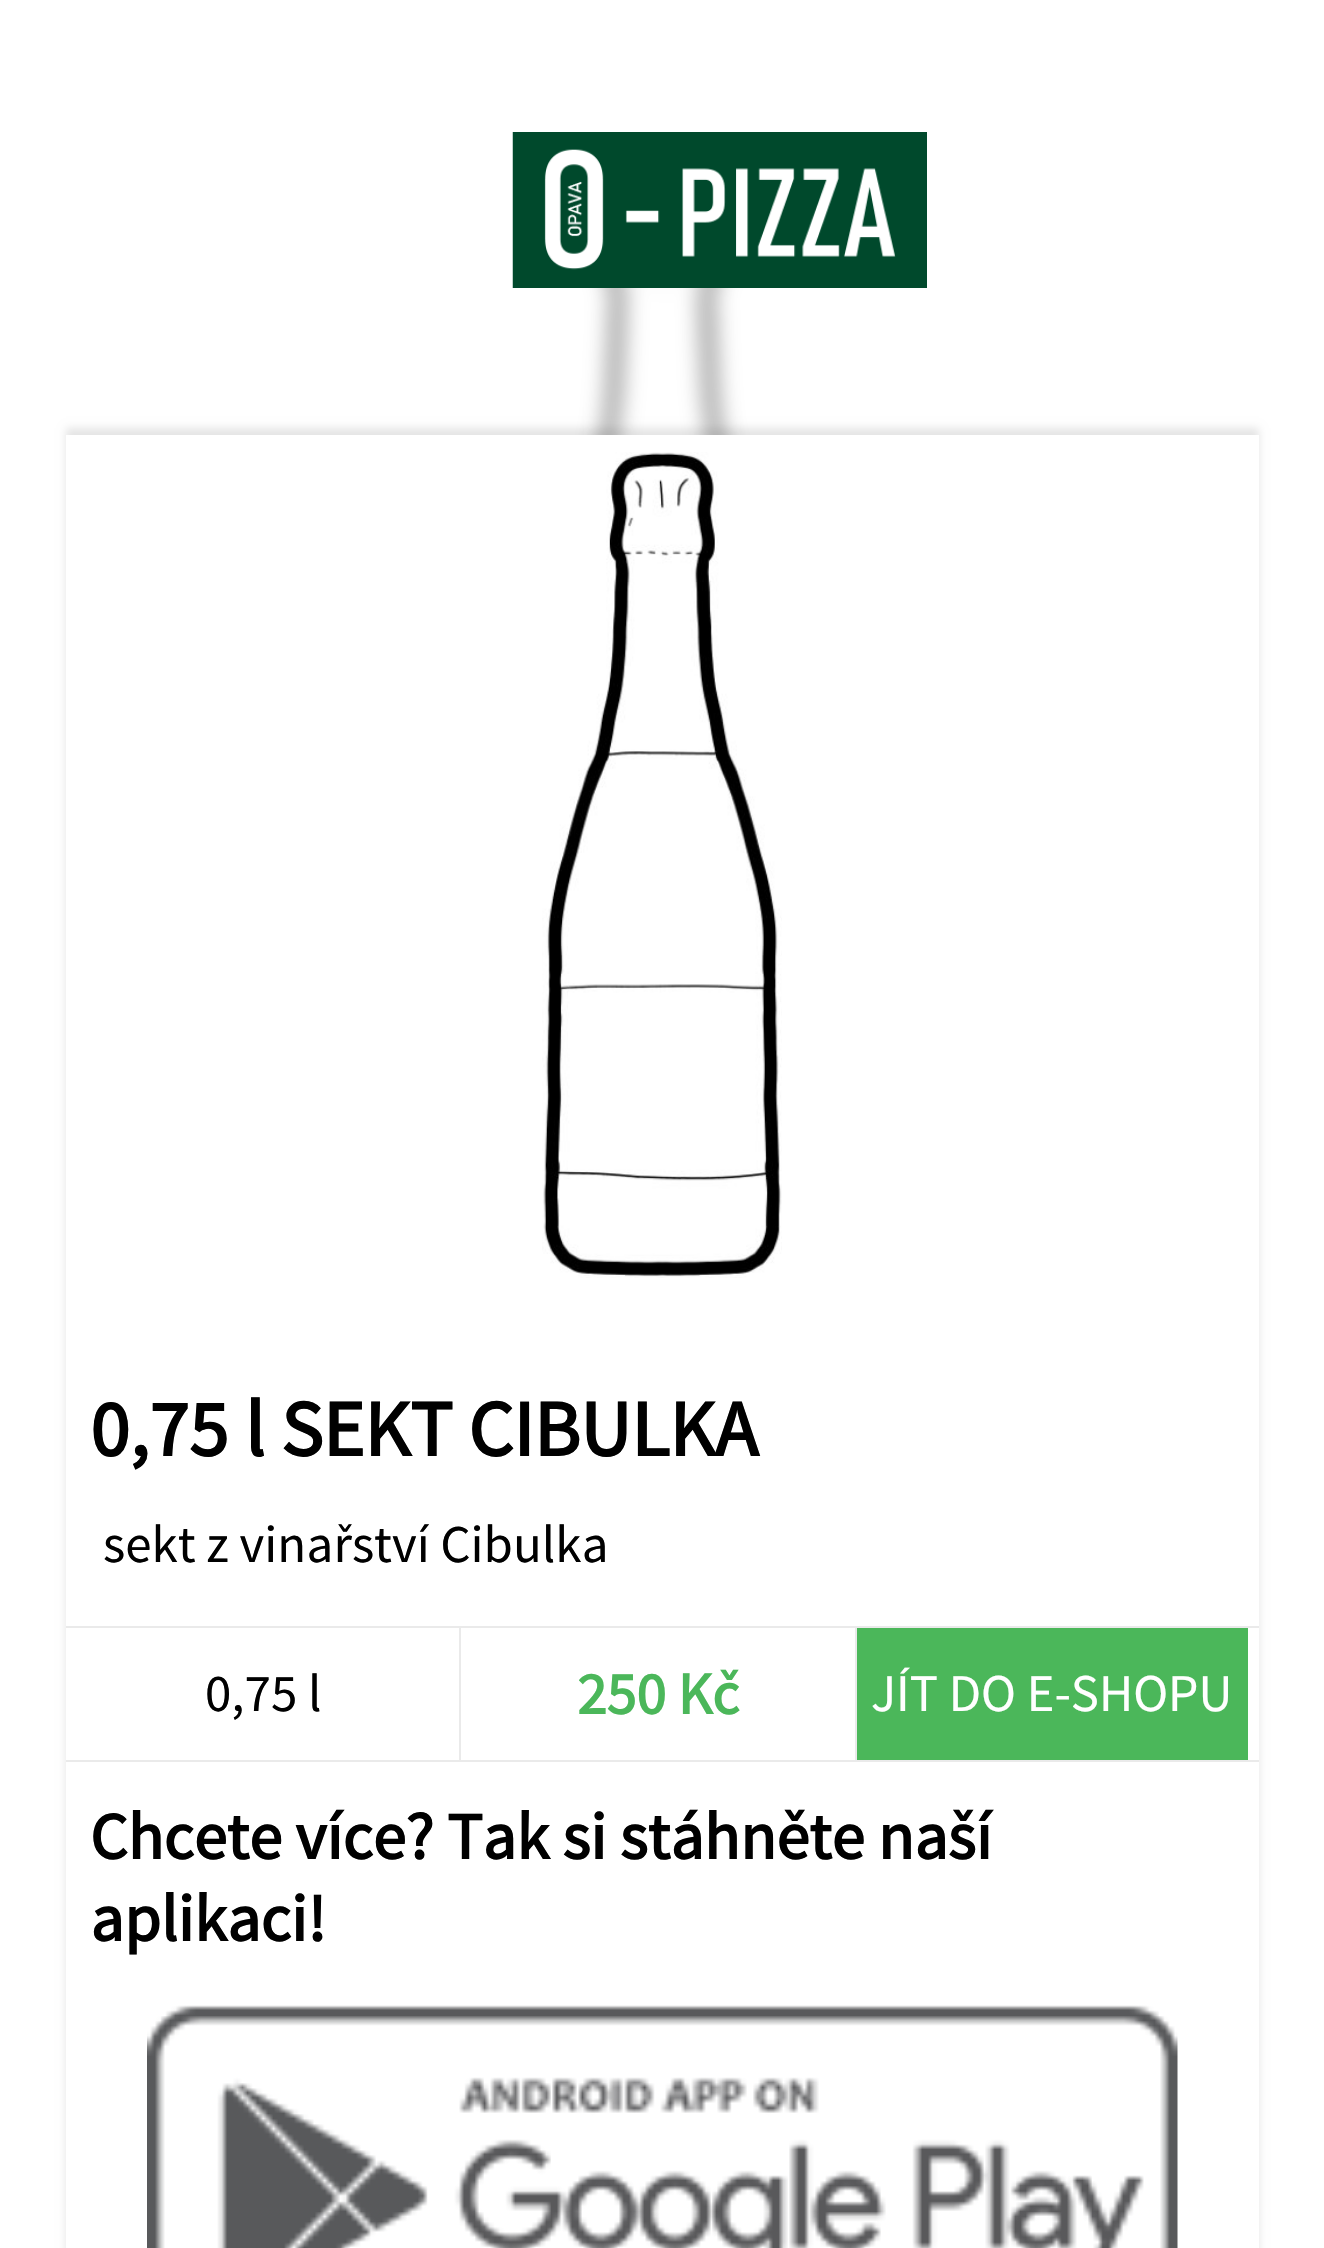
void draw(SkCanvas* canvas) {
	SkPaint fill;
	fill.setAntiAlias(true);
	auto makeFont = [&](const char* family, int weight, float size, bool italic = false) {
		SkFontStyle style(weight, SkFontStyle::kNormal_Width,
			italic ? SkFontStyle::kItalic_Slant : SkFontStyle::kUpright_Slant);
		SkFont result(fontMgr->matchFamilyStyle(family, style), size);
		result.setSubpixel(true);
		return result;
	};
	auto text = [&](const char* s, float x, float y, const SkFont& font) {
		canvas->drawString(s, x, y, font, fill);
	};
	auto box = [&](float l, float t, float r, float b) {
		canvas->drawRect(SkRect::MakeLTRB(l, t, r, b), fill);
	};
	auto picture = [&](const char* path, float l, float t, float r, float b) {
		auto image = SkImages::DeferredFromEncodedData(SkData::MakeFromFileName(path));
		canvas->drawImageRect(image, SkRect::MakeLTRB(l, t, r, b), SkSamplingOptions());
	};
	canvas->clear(0xFFFFFFFF);
	picture("image1.png", 512, 149, 813, 435);
	{
		const SkColor colors[] = {0x2EFFFFFF, 0x99FFFFFF};
		const float stops[] = {0, 1};
		const SkPoint ends[] = {{662, 0}, {662, 1457}};
		fill.setShader(SkGradientShader::MakeLinear(ends, colors, stops, 2, SkTileMode::kClamp));
		fill.setAlpha(255);
	}
	box(584, 154, 740, 435);
	picture("image0.png", 512, 132, 927, 288);
	fill.setShader(nullptr);
	fill.setColor(0x1A000000);
	fill.setMaskFilter(SkMaskFilter::MakeBlur(kNormal_SkBlurStyle, 4));
	canvas->drawRect(SkRect::MakeLTRB(66, 428, 1259, 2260), fill);
	fill.setMaskFilter(nullptr);
	fill.setColor(0xFFFFFFFF);
	box(66, 435, 1259, 2248);
	picture("image2.png", 542, 452, 782, 1278);
	fill.setColor(0xFFEAEAEA);
	box(66, 1626, 1259, 1628);
	box(66, 1760, 1259, 1762);
	box(459, 1628, 461, 1760);
	box(855, 1628, 857, 1760);
	fill.setColor(0xFF4BB75A);
	box(857, 1628, 1248, 1760);
	picture("image3.png", 147, 2005, 1178, 2248);
	auto font1 = makeFont("Source Sans Pro", 700, 79.5f);
	fill.setColor(0xFF000000);
	text("0,75 l SEKT CIBULKA", 90, 1456, font1);
	auto font2 = makeFont("Source Sans Pro", 400, 53);
	text("sekt z vinařství Cibulka", 103, 1562, font2);
	text("0,75 l", 205, 1711, font2);
	auto font3 = makeFont("Source Sans Pro", 700, 59.5f);
	fill.setColor(0xFF4BB75A);
	text("250 Kč", 577, 1714, font3);
	fill.setColor(0xFFFFFFFF);
	text("JÍT DO E-SHOPU", 871, 1711, font2);
	auto font4 = makeFont("Source Sans Pro", 700, 66.25f);
	fill.setColor(0xFF000000);
	text("Chcete více? Tak si stáhněte naší", 90, 1859, font4);
	text("aplikaci!", 90, 1941, font4);
}
